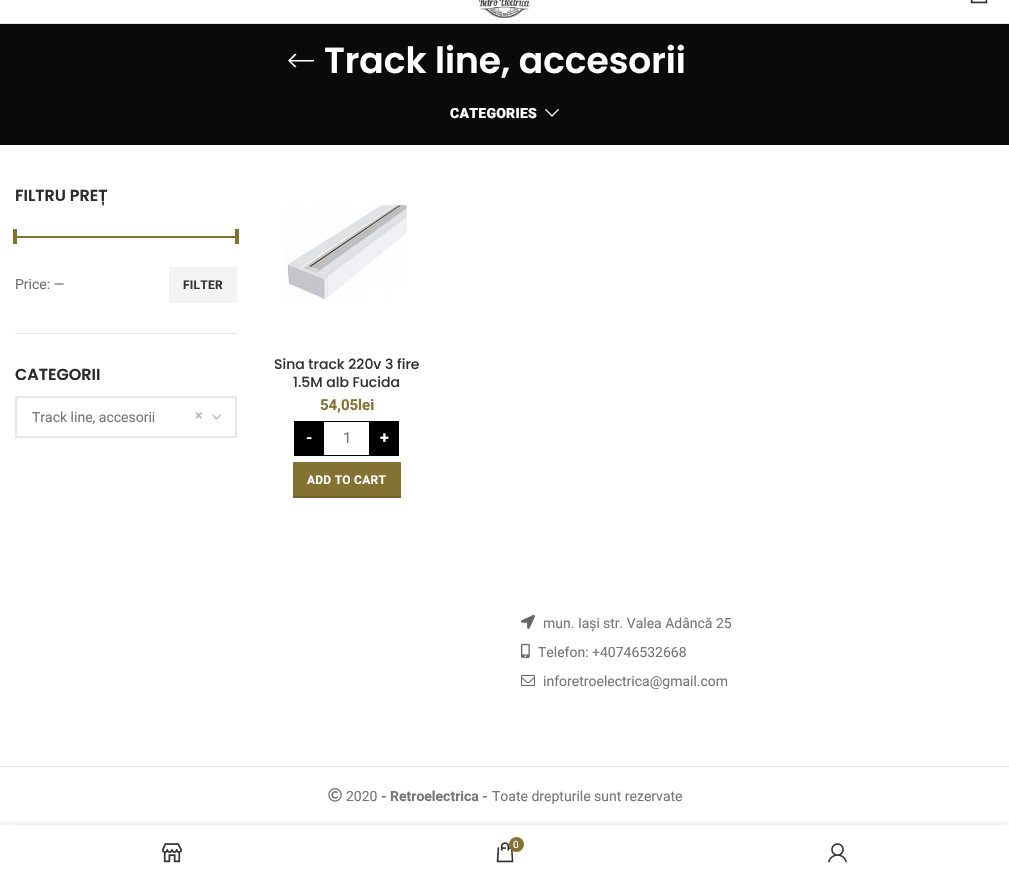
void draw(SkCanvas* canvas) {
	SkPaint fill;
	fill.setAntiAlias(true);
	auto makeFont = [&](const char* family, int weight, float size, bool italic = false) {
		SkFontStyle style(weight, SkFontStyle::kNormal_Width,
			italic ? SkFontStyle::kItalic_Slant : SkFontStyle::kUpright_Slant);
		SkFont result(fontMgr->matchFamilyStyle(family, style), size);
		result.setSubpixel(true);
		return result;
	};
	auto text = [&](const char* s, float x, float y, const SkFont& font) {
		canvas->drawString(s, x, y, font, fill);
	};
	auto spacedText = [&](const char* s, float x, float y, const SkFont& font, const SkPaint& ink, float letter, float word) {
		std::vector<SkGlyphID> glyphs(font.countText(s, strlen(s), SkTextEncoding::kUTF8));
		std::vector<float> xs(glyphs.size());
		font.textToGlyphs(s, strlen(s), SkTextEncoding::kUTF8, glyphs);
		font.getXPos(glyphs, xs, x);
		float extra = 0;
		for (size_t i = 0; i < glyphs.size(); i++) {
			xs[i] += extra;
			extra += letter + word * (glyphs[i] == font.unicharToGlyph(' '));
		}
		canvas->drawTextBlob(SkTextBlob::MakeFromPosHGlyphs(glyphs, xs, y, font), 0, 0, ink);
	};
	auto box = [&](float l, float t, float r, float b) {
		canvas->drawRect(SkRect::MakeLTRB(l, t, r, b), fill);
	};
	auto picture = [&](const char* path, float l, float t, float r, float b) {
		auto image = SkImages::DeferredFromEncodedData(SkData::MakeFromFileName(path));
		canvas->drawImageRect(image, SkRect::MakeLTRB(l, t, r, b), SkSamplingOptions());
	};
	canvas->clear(0xFFFFFFFF);
	fill.setColor(0xFFE6E6E6);
	box(0, 23, 1009, 24);
	picture("image0.png", 478, 0, 530, 18);
	picture("image1.png", 970, 0, 988, 4);
	fill.setColor(0xFF0A0A0A);
	box(0, 24, 1009, 145);
	fill.setColor(0xFFFFFFFF);
	canvas->drawPath(SkPathBuilder().moveTo(314, 60).lineTo(314, 61.5f).lineTo(291, 61.5f).lineTo(296.5f, 66.5f).lineTo(295, 67.5f).lineTo(288, 60.5f).lineTo(295, 53.5f).lineTo(296.5f, 54.5f).lineTo(291, 60).close().detach(), fill);
	picture("image2.png", 545, 108, 559, 117);
	fill.setColor(0xFFE6E6E6);
	box(15, 333, 237, 334);
	fill.setColor(0xFF847233);
	box(15, 236, 237, 238);
	box(13, 229, 17, 244);
	box(235, 229, 239, 244);
	fill.setColor(0xFFF3F3F3);
	box(169, 267, 237, 303);
	fill.setStyle(SkPaint::kStroke_Style);
	fill.setStrokeWidth(2);
	fill.setColor(0xFFE6E6E6);
	canvas->drawRect(SkRect::MakeLTRB(16, 397, 236, 437), fill);
	fill.setStrokeWidth(1.4f);
	fill.setColor(0xFFBBBBBB);
	canvas->drawPath(SkPathBuilder().moveTo(212.5f, 414.5f).lineTo(216.5f, 419).lineTo(221, 414.5f).detach(), fill);
	picture("image3.png", 285, 203, 407, 300);
	fill.setStyle(SkPaint::kFill_Style);
	fill.setColor(0xFF000000);
	box(294, 421, 324, 456);
	box(324, 421, 369, 422);
	box(324, 455, 369, 456);
	box(369, 421, 399, 456);
	fill.setColor(0xFF847233);
	box(293, 462, 401, 496);
	fill.setColor(0xFF70612B);
	box(293, 496, 401, 498);
	picture("image4.png", 521, 614, 535, 629);
	picture("image5.png", 521, 643, 530, 658);
	picture("image6.png", 521, 675, 535, 686);
	fill.setColor(0xFFE6E6E6);
	box(0, 766, 1009, 767);
	picture("image7.png", 328, 788, 342, 802);
	canvas->save();
	canvas->clipRect(SkRect::MakeLTRB(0, 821, 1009, 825));
	fill.setColor(0x1F000000);
	fill.setMaskFilter(SkMaskFilter::MakeBlur(kNormal_SkBlurStyle, 4.5f));
	canvas->drawRect(SkRect::MakeLTRB(0, 825, 1009, 880), fill);
	fill.setMaskFilter(nullptr);
	canvas->restore();
	picture("image8.png", 162, 843, 182, 863);
	picture("image9.png", 496, 842, 514, 863);
	fill.setColor(0xFF847233);
	canvas->drawCircle(516.5f, 844.5f, 7.5f, fill);
	picture("image10.png", 828, 843, 847, 863);
	auto font1 = makeFont("Poppins", 600, 36);
	fill.setColor(0xFFFFFFFF);
	text("Track line, accesorii", 324, 73, font1);
	auto font2 = makeFont("Roboto", 900, 14);
	spacedText("CATEGORIES", 450, 118, font2, fill, 0.25f, 0);
	auto font3 = makeFont("Poppins", 600, 16);
	fill.setColor(0xFF2D2A2A);
	text("FILTRU PREȚ", 15, 201, font3);
	auto font4 = makeFont("Roboto", 400, 14);
	fill.setColor(0xFF717171);
	text("Price: —", 15, 289, font4);
	auto font5 = makeFont("Roboto", 700, 12);
	fill.setColor(0xFF333333);
	spacedText("FILTER", 183, 289, font5, fill, 0.25f, 0);
	fill.setColor(0xFF2D2A2A);
	text("CATEGORII", 15, 380, font3);
	fill.setColor(0xFF777777);
	text("Track line, accesorii", 32, 422, font4);
	auto font6 = makeFont("Roboto", 700, 14);
	fill.setColor(0xFFBBBBBB);
	text("×", 195, 420, font6);
	auto font7 = makeFont("Poppins", 500, 14);
	fill.setColor(0xFF333333);
	text("Sina track 220v 3 fire", 274, 369, font7);
	text("1.5M alb Fucida", 293, 387, font7);
	auto font8 = makeFont("Roboto", 700, 15);
	fill.setColor(0xFF847233);
	text("54,05lei", 320, 410, font8);
	auto font9 = makeFont("Roboto", 700, 16);
	fill.setColor(0xFFFFFFFF);
	text("-", 306, 443, font9);
	auto font10 = makeFont("Roboto", 400, 15);
	fill.setColor(0xFF777777);
	text("1", 343, 443, font10);
	fill.setColor(0xFFFFFFFF);
	text("+", 380, 443, font9);
	spacedText("ADD TO CART", 307, 484, font5, fill, 0.25f, 0);
	fill.setColor(0xFF777777);
	text("mun. Iași", 543, 628, font4);
	text("str. Valea Adâncă 25", 603, 628, font4);
	text("Telefon:", 538, 657, font4);
	text("+40746532668", 592, 657, font4);
	text("inforetroelectrica@gmail.com", 543, 686, font4);
	text("2020", 346, 801, font4);
	text("- Retroelectrica -", 381, 801, font6);
	text("Toate drepturile sunt rezervate", 492, 801, font4);
	auto font11 = makeFont("Roboto", 400, 10);
	fill.setColor(0xFFFFFFFF);
	text("0", 513, 848, font11);
}
